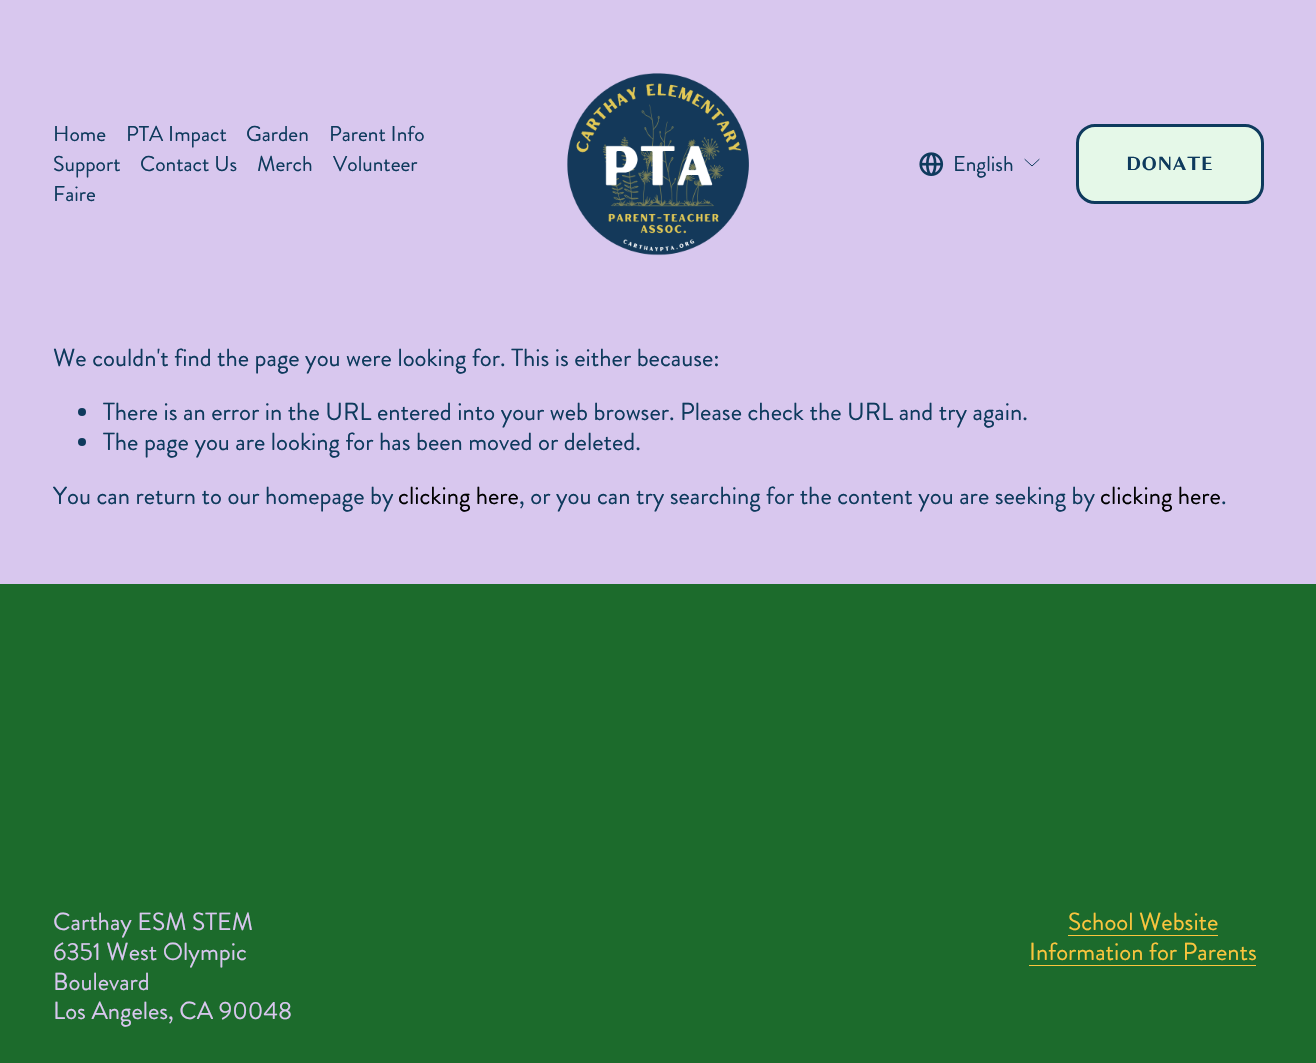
void draw(SkCanvas* canvas) {
	SkPaint fill;
	fill.setAntiAlias(true);
	auto makeFont = [&](const char* family, int weight, float size, bool italic = false) {
		SkFontStyle style(weight, SkFontStyle::kNormal_Width,
			italic ? SkFontStyle::kItalic_Slant : SkFontStyle::kUpright_Slant);
		SkFont result(fontMgr->matchFamilyStyle(family, style), size);
		result.setSubpixel(true);
		return result;
	};
	auto text = [&](const char* s, float x, float y, const SkFont& font) {
		canvas->drawString(s, x, y, font, fill);
	};
	auto spacedText = [&](const char* s, float x, float y, const SkFont& font, const SkPaint& ink, float letter, float word) {
		std::vector<SkGlyphID> glyphs(font.countText(s, strlen(s), SkTextEncoding::kUTF8));
		std::vector<float> xs(glyphs.size());
		font.textToGlyphs(s, strlen(s), SkTextEncoding::kUTF8, glyphs);
		font.getXPos(glyphs, xs, x);
		float extra = 0;
		for (size_t i = 0; i < glyphs.size(); i++) {
			xs[i] += extra;
			extra += letter + word * (glyphs[i] == font.unicharToGlyph(' '));
		}
		canvas->drawTextBlob(SkTextBlob::MakeFromPosHGlyphs(glyphs, xs, y, font), 0, 0, ink);
	};
	auto box = [&](float l, float t, float r, float b) {
		canvas->drawRect(SkRect::MakeLTRB(l, t, r, b), fill);
	};
	auto picture = [&](const char* path, float l, float t, float r, float b) {
		auto image = SkImages::DeferredFromEncodedData(SkData::MakeFromFileName(path));
		canvas->drawImageRect(image, SkRect::MakeLTRB(l, t, r, b), SkSamplingOptions());
	};
	canvas->clear(0xFFD8C7EE);
	picture("image0.png", 567, 73, 749, 256);
	picture("image1.png", 919, 152, 944, 176);
	fill.setStyle(SkPaint::kStroke_Style);
	fill.setStrokeWidth(1);
	fill.setStrokeCap(SkPaint::kSquare_Cap);
	fill.setColor(0xFF0E3A5D);
	canvas->drawPath(SkPathBuilder().moveTo(1039, 159.5f).lineTo(1032, 166).lineTo(1025, 159.5f).detach(), fill);
	fill.setStyle(SkPaint::kFill_Style);
	fill.setColor(0xFFE5F8E8);
	canvas->drawRoundRect(SkRect::MakeLTRB(1077.5f, 125.5f, 1262.5f, 202.5f), 17.5f, 17.5f, fill);
	fill.setStyle(SkPaint::kStroke_Style);
	fill.setStrokeWidth(3);
	fill.setStrokeCap(SkPaint::kButt_Cap);
	fill.setColor(0xFF0E3A5D);
	canvas->drawRoundRect(SkRect::MakeLTRB(1077.5f, 125.5f, 1262.5f, 202.5f), 17.5f, 17.5f, fill);
	fill.setStyle(SkPaint::kFill_Style);
	canvas->drawCircle(82, 412, 4, fill);
	canvas->drawCircle(82, 442, 4, fill);
	fill.setColor(0xFF1C6B2C);
	box(0, 584, 1316, 1063);
	fill.setColor(0xFFFAC53E);
	box(1068, 935, 1218, 936);
	box(1029, 965, 1256, 966);
	auto font1 = makeFont("Brandon Grotesque", 400, 21.5f);
	fill.setColor(0xFF0E3A5D);
	text("Home", 53, 141, font1);
	text("PTA Impact", 126, 141, font1);
	text("Garden", 246, 141, font1);
	text("Parent Info", 329, 141, font1);
	text("Support", 53, 171, font1);
	text("Contact Us", 140, 171, font1);
	text("Merch", 257, 171, font1);
	text("Volunteer", 333, 171, font1);
	text("Faire", 53, 201, font1);
	text("English", 953, 171, font1);
	auto font2 = makeFont("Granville", 700, 20);
	spacedText("DONATE", 1126, 170, font2, fill, 0.5f, 0);
	auto font3 = makeFont("Brandon Grotesque", 400, 24.75f);
	text("We couldn't find the page you were looking for. This is either because:", 53, 366, font3);
	text("There is an error in the URL entered into your web browser. Please check the URL and try again.", 103, 420, font3);
	text("The page you are looking for has been moved or deleted.", 103, 450, font3);
	text("You can return to our homepage by", 53, 504, font3);
	fill.setColor(0xFF000000);
	text("clicking here", 398, 504, font3);
	fill.setColor(0xFF0E3A5D);
	text(", or you can try searching for the content you are seeking by", 519, 504, font3);
	fill.setColor(0xFF000000);
	text("clicking here", 1100, 504, font3);
	fill.setColor(0xFF0E3A5D);
	text(".", 1221, 504, font3);
	fill.setColor(0xFFD8C7EE);
	text("Carthay ESM STEM", 53, 930, font3);
	text("6351 West Olympic", 53, 960, font3);
	text("Boulevard", 53, 990, font3);
	text("Los Angeles, CA 90048", 53, 1019, font3);
	fill.setColor(0xFFFAC53E);
	text("School Website", 1068, 930, font3);
	text("Information for Parents", 1029, 960, font3);
}
